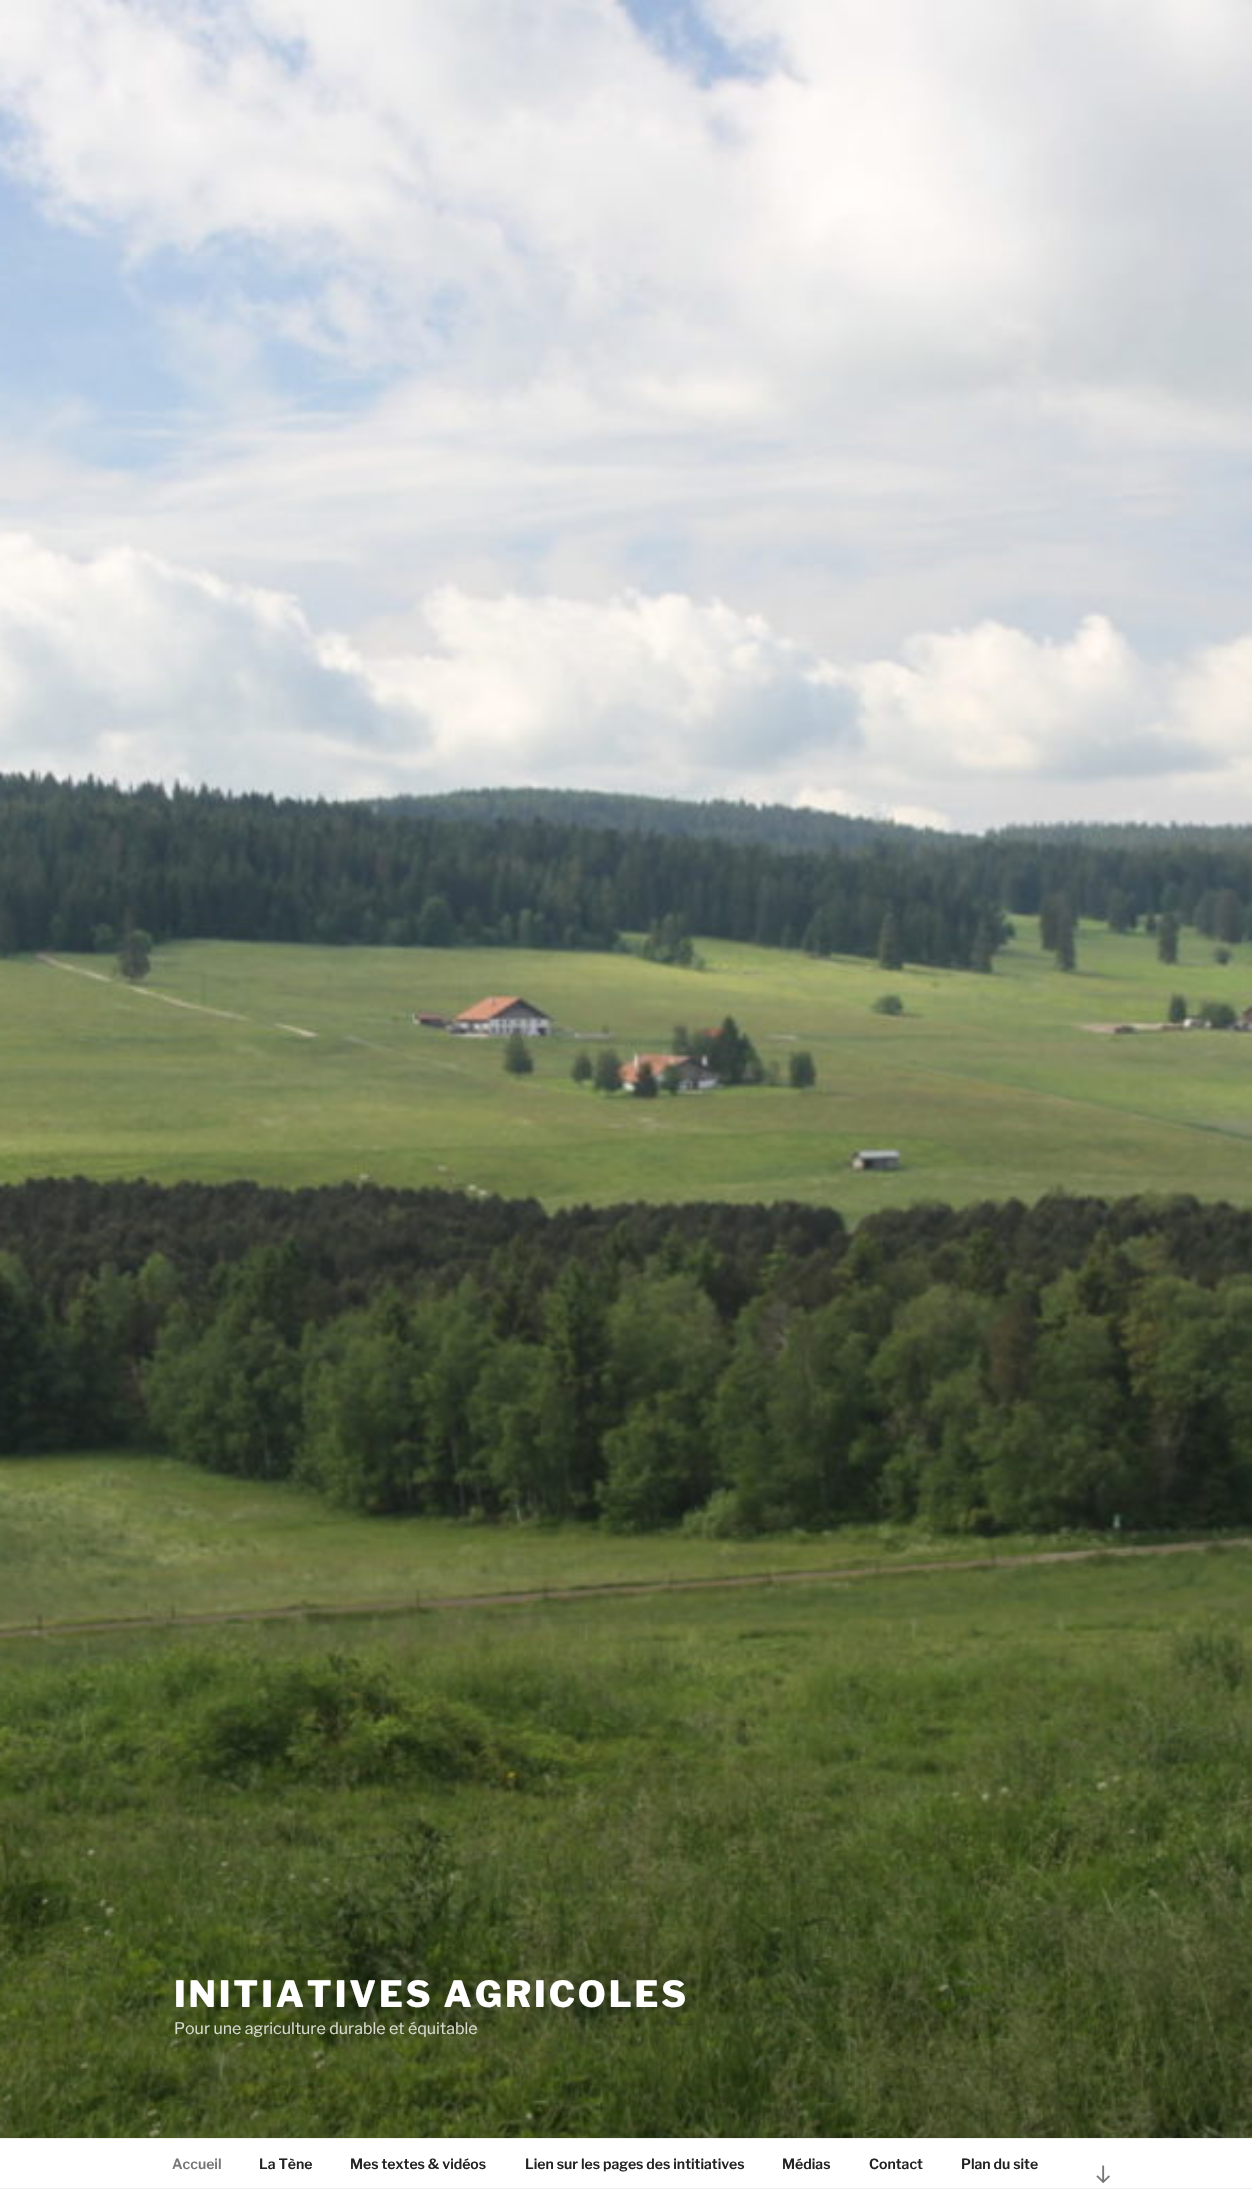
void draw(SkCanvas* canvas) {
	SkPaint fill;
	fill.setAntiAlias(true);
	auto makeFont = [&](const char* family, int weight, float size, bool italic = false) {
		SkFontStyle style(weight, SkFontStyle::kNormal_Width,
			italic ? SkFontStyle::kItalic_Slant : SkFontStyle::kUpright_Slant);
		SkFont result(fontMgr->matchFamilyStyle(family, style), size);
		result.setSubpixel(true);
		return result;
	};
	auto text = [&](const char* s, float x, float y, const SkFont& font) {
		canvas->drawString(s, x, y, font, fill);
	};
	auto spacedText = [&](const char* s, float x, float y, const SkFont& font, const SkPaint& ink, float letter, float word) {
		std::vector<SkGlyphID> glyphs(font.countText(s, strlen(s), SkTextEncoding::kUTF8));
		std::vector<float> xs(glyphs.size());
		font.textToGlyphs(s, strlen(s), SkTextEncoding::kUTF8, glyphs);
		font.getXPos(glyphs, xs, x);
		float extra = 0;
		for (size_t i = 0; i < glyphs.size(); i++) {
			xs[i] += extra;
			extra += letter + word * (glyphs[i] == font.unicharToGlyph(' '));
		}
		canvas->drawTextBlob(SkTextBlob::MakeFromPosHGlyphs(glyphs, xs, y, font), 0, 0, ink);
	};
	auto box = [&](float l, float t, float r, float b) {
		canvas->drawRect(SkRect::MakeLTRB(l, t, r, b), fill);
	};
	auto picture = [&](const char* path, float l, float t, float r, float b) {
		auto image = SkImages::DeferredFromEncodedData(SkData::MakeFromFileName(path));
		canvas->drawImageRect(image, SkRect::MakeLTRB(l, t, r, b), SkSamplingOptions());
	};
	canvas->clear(0xFFFFFFFF);
	picture("image0.png", 0, 0, 1252, 2138);
	fill.setColor(0xFFEEEEEE);
	box(0, 2138, 1252, 2139);
	box(0, 2188, 1252, 2189);
	picture("image1.png", 1096, 2165, 1110, 2183);
	auto font1 = makeFont("Libre Franklin", 100, 36);
	fill.setColor(0xFFFFFFFF);
	spacedText("INITIATIVES AGRICOLES", 174, 2007, font1, fill, 2.9f, 0);
	auto font2 = makeFont("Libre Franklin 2", 100, 16);
	fill.setColor(0xFFD8DBD2);
	text("Pour une agriculture durable et équitable", 174, 2034, font2);
	auto font3 = makeFont("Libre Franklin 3", 100, 14);
	fill.setColor(0xFF767676);
	text("Accueil", 172, 2169, font3);
	fill.setColor(0xFF222222);
	text("La Tène", 259, 2169, font3);
	text("Mes textes & vidéos", 350, 2169, font3);
	text("Lien sur les pages des intitiatives", 525, 2169, font3);
	text("Médias", 782, 2169, font3);
	text("Contact", 869, 2169, font3);
	text("Plan du site", 961, 2169, font3);
}
